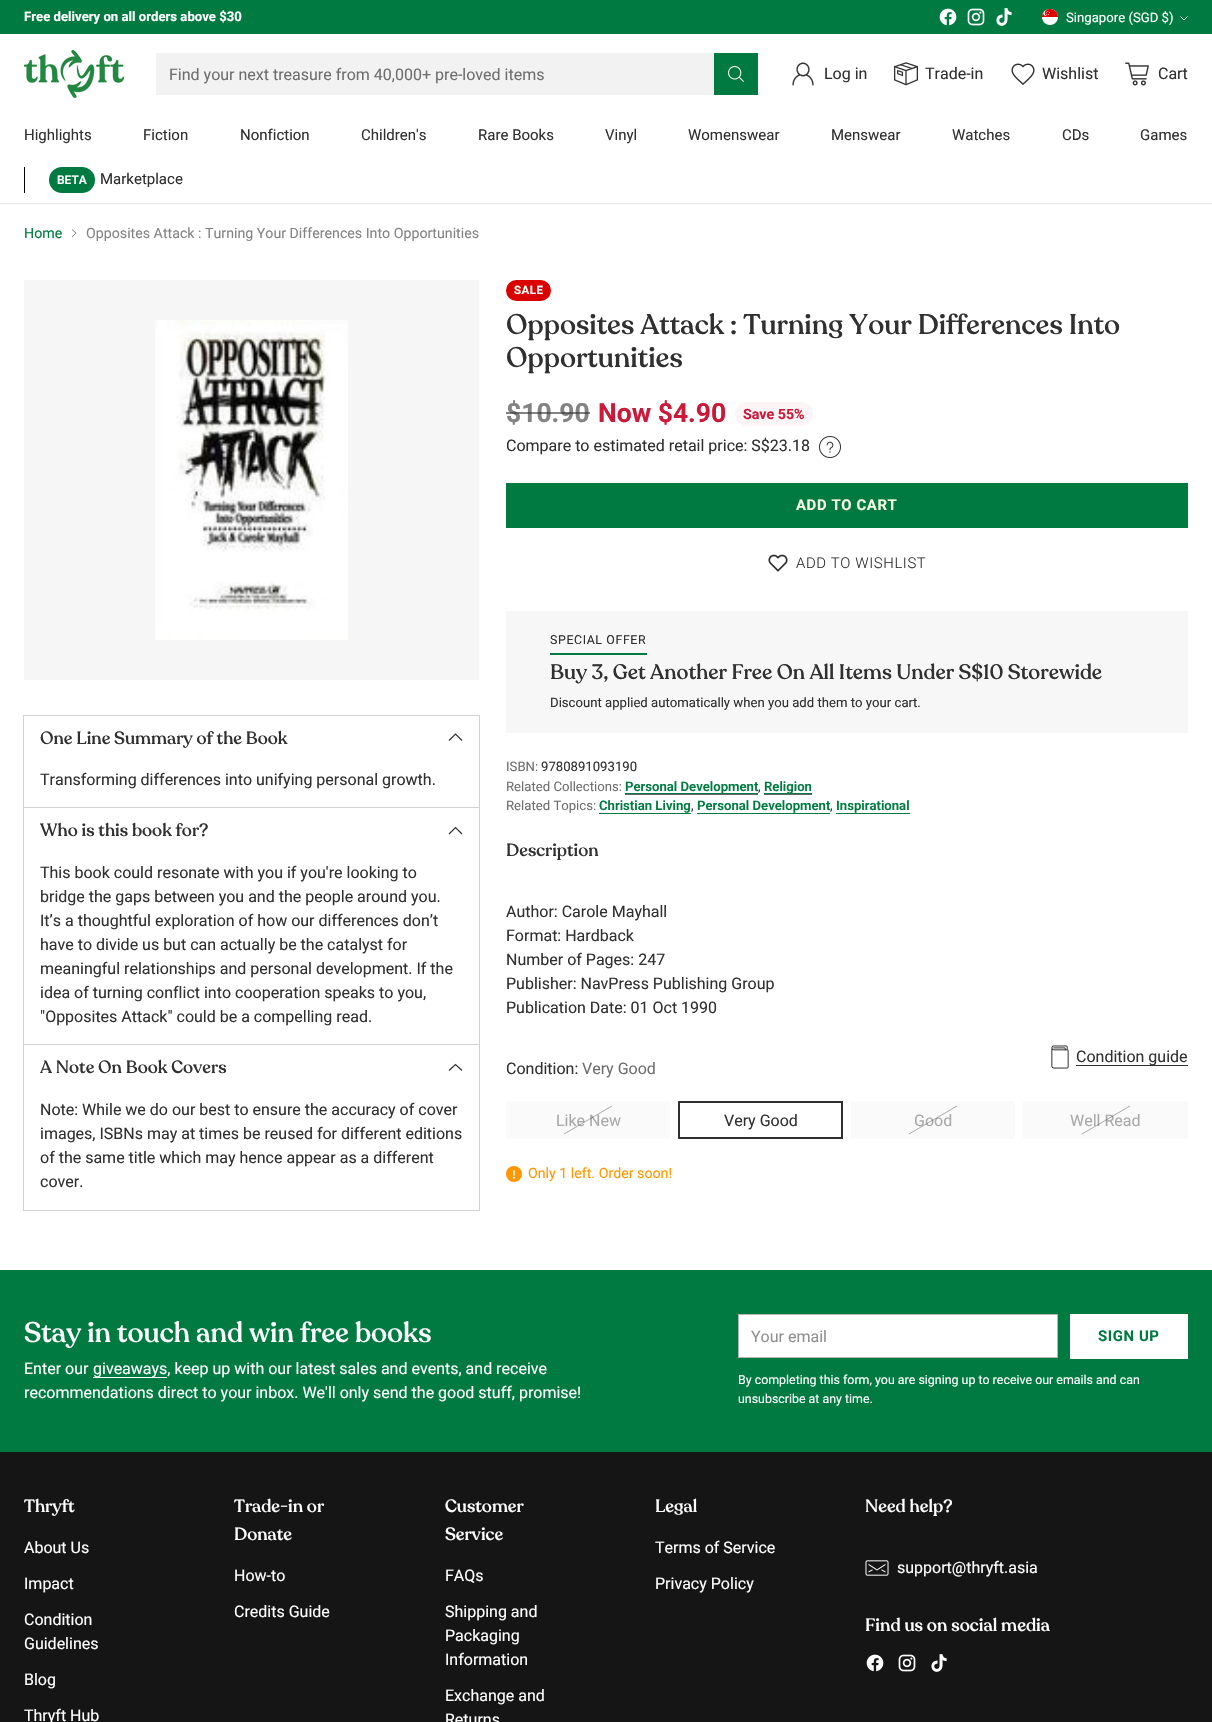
void draw(SkCanvas* canvas) {
	SkPaint fill;
	fill.setAntiAlias(true);
	auto makeFont = [&](const char* family, int weight, float size, bool italic = false) {
		SkFontStyle style(weight, SkFontStyle::kNormal_Width,
			italic ? SkFontStyle::kItalic_Slant : SkFontStyle::kUpright_Slant);
		SkFont result(fontMgr->matchFamilyStyle(family, style), size);
		result.setSubpixel(true);
		return result;
	};
	auto text = [&](const char* s, float x, float y, const SkFont& font) {
		canvas->drawString(s, x, y, font, fill);
	};
	auto spacedText = [&](const char* s, float x, float y, const SkFont& font, const SkPaint& ink, float letter, float word) {
		std::vector<SkGlyphID> glyphs(font.countText(s, strlen(s), SkTextEncoding::kUTF8));
		std::vector<float> xs(glyphs.size());
		font.textToGlyphs(s, strlen(s), SkTextEncoding::kUTF8, glyphs);
		font.getXPos(glyphs, xs, x);
		float extra = 0;
		for (size_t i = 0; i < glyphs.size(); i++) {
			xs[i] += extra;
			extra += letter + word * (glyphs[i] == font.unicharToGlyph(' '));
		}
		canvas->drawTextBlob(SkTextBlob::MakeFromPosHGlyphs(glyphs, xs, y, font), 0, 0, ink);
	};
	auto box = [&](float l, float t, float r, float b) {
		canvas->drawRect(SkRect::MakeLTRB(l, t, r, b), fill);
	};
	auto roundBox = [&](float l, float t, float r, float b, float radius) {
		canvas->drawRoundRect(SkRect::MakeLTRB(l, t, r, b), radius, radius, fill);
	};
	auto picture = [&](const char* path, float l, float t, float r, float b) {
		auto image = SkImages::DeferredFromEncodedData(SkData::MakeFromFileName(path));
		canvas->drawImageRect(image, SkRect::MakeLTRB(l, t, r, b), SkSamplingOptions());
	};
	canvas->clear(0xFFFFFFFF);
	fill.setColor(0xFF007A41);
	box(0, 0, 1212, 34);
	picture("image0.png", 939, 8, 957, 26);
	picture("image1.png", 967, 8, 985, 26);
	picture("image2.png", 996, 8, 1012, 26);
	picture("image3.png", 1042, 9, 1058, 25);
	fill.setStyle(SkPaint::kStroke_Style);
	fill.setStrokeWidth(0.9f);
	fill.setColor(0xFFFFFFFF);
	canvas->drawPath(SkPathBuilder().moveTo(1180.5f, 16.5f).lineTo(1184, 20).lineTo(1187.5f, 16.5f).detach(), fill);
	fill.setStrokeWidth(1);
	fill.setColor(0xFFE6E6E6);
	canvas->drawRect(SkRect::MakeLTRB(-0.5f, 113.5f, 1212.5f, 203.5f), fill);
	fill.setStyle(SkPaint::kFill_Style);
	fill.setColor(0xFFFFFFFF);
	box(0, 113, 1212, 114);
	picture("image4.png", 24, 50, 124, 98);
	fill.setStyle(SkPaint::kStroke_Style);
	fill.setColor(0xFFF2F2F2);
	canvas->drawRect(SkRect::MakeLTRB(156.5f, 53.5f, 757.5f, 94.5f), fill);
	fill.setStyle(SkPaint::kFill_Style);
	box(157, 54, 714, 94);
	fill.setColor(0xFF007A41);
	box(714, 53, 758, 95);
	picture("image5.png", 728, 66, 744, 82);
	picture("image6.png", 792, 62, 814, 86);
	picture("image7.png", 894, 62, 918, 86);
	picture("image8.png", 1011, 63, 1035, 85);
	picture("image9.png", 1125, 62, 1149, 86);
	fill.setColor(0xFF000000);
	box(24, 167, 25, 193);
	fill.setColor(0xFF007A41);
	roundBox(49, 167, 95, 193, 13);
	fill.setStyle(SkPaint::kStroke_Style);
	fill.setColor(0xFF838383);
	canvas->drawPath(SkPathBuilder().moveTo(72, 237).lineTo(76, 233).lineTo(72, 229.5f).detach(), fill);
	fill.setStyle(SkPaint::kFill_Style);
	fill.setColor(0xFFF6F6F6);
	box(24, 280, 479, 680);
	picture("image10.png", 155, 320, 348, 640);
	fill.setStyle(SkPaint::kStroke_Style);
	fill.setColor(0xFFD2D2D2);
	canvas->drawRect(SkRect::MakeLTRB(23.5f, 715.5f, 479.5f, 808.5f), fill);
	fill.setStrokeWidth(1.2f);
	fill.setColor(0xFF303030);
	canvas->drawPath(SkPathBuilder().moveTo(449, 740.5f).lineTo(455.5f, 734).lineTo(462, 740.5f).detach(), fill);
	fill.setStrokeWidth(1);
	fill.setColor(0xFFD2D2D2);
	canvas->drawRect(SkRect::MakeLTRB(23.5f, 807.5f, 479.5f, 1045.5f), fill);
	fill.setStyle(SkPaint::kFill_Style);
	fill.setColor(0xFFFFFFFF);
	box(24, 808, 479, 809);
	fill.setStyle(SkPaint::kStroke_Style);
	fill.setStrokeWidth(1.2f);
	fill.setColor(0xFF303030);
	canvas->drawPath(SkPathBuilder().moveTo(449, 834).lineTo(455.5f, 827.5f).lineTo(462, 834).detach(), fill);
	fill.setStrokeWidth(1);
	fill.setColor(0xFFD2D2D2);
	canvas->drawRect(SkRect::MakeLTRB(23.5f, 1044.5f, 479.5f, 1210.5f), fill);
	fill.setStyle(SkPaint::kFill_Style);
	fill.setColor(0xFFFFFFFF);
	box(24, 1045, 479, 1046);
	fill.setStyle(SkPaint::kStroke_Style);
	fill.setStrokeWidth(1.2f);
	fill.setColor(0xFF303030);
	canvas->drawPath(SkPathBuilder().moveTo(449, 1070.5f).lineTo(455.5f, 1064.5f).lineTo(462, 1070.5f).detach(), fill);
	fill.setStyle(SkPaint::kFill_Style);
	fill.setColor(0xFFDA0000);
	roundBox(506, 280, 551, 301, 10.5f);
	fill.setColor(0xFFFCF4F5);
	roundBox(735, 402, 813, 426, 12);
	picture("image11.png", 819, 436, 841, 458);
	fill.setColor(0xFF007A41);
	box(506, 483, 1188, 528);
	picture("image12.png", 768, 554, 788, 572);
	fill.setColor(0xFFF7F7F7);
	box(506, 611, 1188, 733);
	fill.setColor(0xFF007A41);
	box(550, 653, 647, 655);
	fill.setColor(0xFF666666);
	box(625, 794, 758, 795);
	fill.setColor(0xFF007A41);
	box(625, 793, 758, 794);
	fill.setColor(0xFF666666);
	box(764, 794, 812, 795);
	fill.setColor(0xFF007A41);
	box(764, 793, 812, 794);
	box(599, 813, 691, 814);
	box(697, 813, 830, 814);
	box(836, 813, 910, 814);
	picture("image13.png", 1051, 1045, 1069, 1069);
	fill.setColor(0xFF303030);
	box(1076, 1065, 1188, 1066);
	fill.setColor(0xFFFAFAFA);
	box(506, 1101, 670, 1139);
	fill.setStyle(SkPaint::kStroke_Style);
	fill.setStrokeWidth(1);
	fill.setColor(0xFF303030);
	canvas->drawRect(SkRect::MakeLTRB(679.5f, 1102.5f, 841.5f, 1137.5f), fill);
	canvas->drawRect(SkRect::MakeLTRB(678.5f, 1101.5f, 842.5f, 1138.5f), fill);
	fill.setStyle(SkPaint::kFill_Style);
	fill.setColor(0xFFFAFAFA);
	box(851, 1101, 1015, 1139);
	box(1023, 1101, 1188, 1139);
	fill.setColor(0xFFFF9800);
	canvas->drawCircle(514, 1174, 8, fill);
	picture("image14.png", 513, 1170, 515, 1179);
	fill.setColor(0xFF007A41);
	box(0, 1270, 1212, 1452);
	fill.setColor(0xFFFFFFFF);
	box(93, 1377, 167, 1378);
	canvas->drawRect(SkRect::MakeLTRB(738.5f, 1314.5f, 1057.5f, 1357.5f), fill);
	fill.setStyle(SkPaint::kStroke_Style);
	fill.setColor(0xFFB4B4B4);
	canvas->drawRect(SkRect::MakeLTRB(738.5f, 1314.5f, 1057.5f, 1357.5f), fill);
	fill.setStyle(SkPaint::kFill_Style);
	fill.setColor(0xFFFFFFFF);
	box(1070, 1314, 1188, 1359);
	fill.setColor(0xFF151515);
	box(0, 1452, 1212, 1722);
	picture("image15.png", 865, 1560, 889, 1576);
	picture("image16.png", 866, 1654, 884, 1672);
	picture("image17.png", 898, 1654, 916, 1672);
	picture("image18.png", 931, 1654, 947, 1672);
	auto font1 = makeFont("Roboto", 700, 13.15f);
	fill.setColor(0xFFFFFFFF);
	text("Free delivery on all orders above $30", 24, 21, font1);
	auto font2 = makeFont("Roboto", 400, 13.15f);
	text("Singapore (SGD $)", 1066, 22, font2);
	auto font3 = makeFont("Roboto", 400, 16);
	fill.setColor(0xFF6E6E6E);
	text("Find your next treasure from 40,000+ pre-loved items", 169, 80, font3);
	fill.setColor(0xFF303030);
	text("Log in", 824, 79, font3);
	text("Trade-in", 925, 79, font3);
	text("Wishlist", 1042, 79, font3);
	text("Cart", 1158, 79, font3);
	auto font4 = makeFont("Roboto", 400, 15);
	text("Highlights", 24, 140, font4);
	text("Fiction", 143, 140, font4);
	text("Nonfiction", 240, 140, font4);
	text("Children's", 361, 140, font4);
	text("Rare Books", 478, 140, font4);
	text("Vinyl", 605, 140, font4);
	text("Womenswear", 688, 140, font4);
	text("Menswear", 831, 140, font4);
	text("Watches", 952, 140, font4);
	text("CDs", 1062, 140, font4);
	text("Games", 1140, 140, font4);
	auto font5 = makeFont("Roboto", 600, 12);
	fill.setColor(0xFFFFFFFF);
	text("BETA", 57, 184, font5);
	fill.setColor(0xFF303030);
	text("Marketplace", 100, 184, font4);
	auto font6 = makeFont("Roboto", 400, 14.2f);
	fill.setColor(0xFF007A41);
	text("Home", 24, 238, font6);
	fill.setColor(0xFF838383);
	text("Opposites Attack : Turning Your Differences Into Opportunities", 86, 238, font6);
	auto font7 = makeFont("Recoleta", 500, 17.6f);
	fill.setColor(0xFF303030);
	text("One Line Summary of the Book", 40, 744, font7);
	text("Transforming differences into unifying personal growth.", 40, 785, font3);
	text("Who is this book for?", 40, 836, font7);
	text("This book could resonate with you if you're looking to", 40, 878, font3);
	text("bridge the gaps between you and the people around you.", 40, 902, font3);
	text("It’s a thoughtful exploration of how our differences don’t", 40, 926, font3);
	text("have to divide us but can actually be the catalyst for", 40, 950, font3);
	text("meaningful relationships and personal development. If the", 40, 974, font3);
	text("idea of turning conflict into cooperation speaks to you,", 40, 998, font3);
	text("\"Opposites Attack\" could be a compelling read.", 40, 1022, font3);
	text("A Note On Book Covers", 40, 1073, font7);
	text("Note: While we do our best to ensure the accuracy of cover", 40, 1115, font3);
	text("images, ISBNs may at times be reused for different editions", 40, 1139, font3);
	text("of the same title which may hence appear as a different", 40, 1163, font3);
	text("cover.", 40, 1187, font3);
	auto font8 = makeFont("Roboto", 700, 11.5f);
	fill.setColor(0xFFFFFFFF);
	spacedText("SALE", 514, 294, font8, fill, 0.5f, 0);
	auto font9 = makeFont("Recoleta", 500, 28);
	fill.setColor(0xFF303030);
	text("Opposites Attack : Turning Your Differences Into", 506, 334, font9);
	text("Opportunities", 506, 367, font9);
	auto font10 = makeFont("Roboto", 700, 26.5f);
	fill.setColor(0xFF838383);
	text("$10.90", 506, 422, font10);
	fill.setColor(0x99303030);
	box(506, 412, 590, 414);
	fill.setColor(0xFFCA1939);
	text("Now $4.90", 598, 422, font10);
	auto font11 = makeFont("Roboto", 700, 14.2f);
	text("Save 55%", 743, 419, font11);
	fill.setColor(0xFF303030);
	text("Compare to estimated retail price: S$23.18", 506, 451, font3);
	auto font12 = makeFont("Roboto", 700, 14.9f);
	fill.setColor(0xFFF8FDE4);
	spacedText("ADD TO CART", 796, 510, font12, fill, 0.6f, 0);
	auto font13 = makeFont("Roboto", 300, 14.9f);
	fill.setColor(0xFF303030);
	spacedText("ADD TO WISHLIST", 796, 568, font13, fill, 0.6f, 0);
	auto font14 = makeFont("Roboto", 400, 12.4f);
	spacedText("SPECIAL OFFER", 550, 644, font14, fill, 0.6f, 0);
	auto font15 = makeFont("Recoleta", 500, 20.8f);
	text("Buy 3, Get Another Free On All Items Under S$10 Storewide", 550, 679, font15);
	text("Discount applied automatically when you add them to your cart.", 550, 707, font2);
	fill.setColor(0xFF6E6E6E);
	text("ISBN:", 506, 771, font2);
	fill.setColor(0xFF303030);
	text("9780891093190", 541, 771, font2);
	fill.setColor(0xFF6E6E6E);
	text("Related Collections:", 506, 791, font2);
	auto font16 = makeFont("Roboto", 600, 13.15f);
	fill.setColor(0xFF007A41);
	text("Personal Development", 625, 791, font16);
	fill.setColor(0xFF303030);
	text(",", 758, 791, font2);
	fill.setColor(0xFF007A41);
	text("Religion", 764, 791, font16);
	fill.setColor(0xFF6E6E6E);
	text("Related Topics:", 506, 810, font2);
	fill.setColor(0xFF007A41);
	text("Christian Living", 599, 810, font16);
	fill.setColor(0xFF303030);
	text(",", 691, 810, font2);
	fill.setColor(0xFF007A41);
	text("Personal Development", 697, 810, font16);
	fill.setColor(0xFF303030);
	text(",", 830, 810, font2);
	fill.setColor(0xFF007A41);
	text("Inspirational", 836, 810, font16);
	fill.setColor(0xFF303030);
	text("Description", 506, 856, font7);
	text("Author: Carole Mayhall", 506, 917, font3);
	text("Format: Hardback", 506, 941, font3);
	text("Number of Pages: 247", 506, 965, font3);
	text("Publisher: NavPress Publishing Group", 506, 989, font3);
	text("Publication Date: 01 Oct 1990", 506, 1013, font3);
	text("Condition guide", 1076, 1062, font3);
	text("Condition:", 506, 1074, font3);
	fill.setColor(0xFF6E6E6E);
	text("Very Good", 582, 1074, font3);
	fill.setColor(0xFFA9A9A9);
	text("Like New", 556, 1126, font3);
	fill.setStyle(SkPaint::kStroke_Style);
	fill.setColor(0x66303030);
	canvas->drawPath(SkPathBuilder().moveTo(564, 1134).lineTo(612, 1106).detach(), fill);
	fill.setStyle(SkPaint::kFill_Style);
	fill.setColor(0xFF303030);
	text("Very Good", 724, 1126, font3);
	fill.setColor(0xFFA9A9A9);
	text("Good", 914, 1126, font3);
	fill.setStyle(SkPaint::kStroke_Style);
	fill.setColor(0x66303030);
	canvas->drawPath(SkPathBuilder().moveTo(909, 1134).lineTo(957, 1106).detach(), fill);
	fill.setStyle(SkPaint::kFill_Style);
	fill.setColor(0xFFA9A9A9);
	text("Well Read", 1070, 1126, font3);
	fill.setStyle(SkPaint::kStroke_Style);
	fill.setColor(0x66303030);
	canvas->drawPath(SkPathBuilder().moveTo(1082, 1134).lineTo(1130, 1106).detach(), fill);
	fill.setStyle(SkPaint::kFill_Style);
	fill.setColor(0xFFFF9800);
	text("Only 1 left. Order soon!", 528, 1178, font6);
	fill.setColor(0xFFFFFFFF);
	text("Stay in touch and win free books", 24, 1342, font9);
	text("Enter our", 24, 1374, font3);
	text("giveaways, keep up with our latest sales and events, and receive", 93, 1374, font3);
	text("recommendations direct to your inbox. We'll only send the good stuff, promise!", 24, 1398, font3);
	fill.setColor(0xFF8F8F8F);
	text("Your email", 751, 1342, font3);
	fill.setColor(0xFF007A41);
	spacedText("SIGN UP", 1098, 1341, font12, fill, 0.6f, 0);
	fill.setColor(0xFFFFFFFF);
	text("By completing this form, you are signing up to receive our emails and can", 738, 1384, font14);
	text("unsubscribe at any time.", 738, 1403, font14);
	text("Thryft", 24, 1512, font7);
	text("About Us", 24, 1553, font3);
	text("Impact", 24, 1589, font3);
	text("Condition", 24, 1625, font3);
	text("Guidelines", 24, 1649, font3);
	text("Blog", 24, 1685, font3);
	text("Thryft Hub", 24, 1721, font3);
	text("Trade-in or", 234, 1512, font7);
	text("Donate", 234, 1540, font7);
	text("How-to", 234, 1581, font3);
	text("Credits Guide", 234, 1617, font3);
	text("Customer", 445, 1512, font7);
	text("Service", 445, 1540, font7);
	text("FAQs", 445, 1581, font3);
	text("Shipping and", 445, 1617, font3);
	text("Packaging", 445, 1641, font3);
	text("Information", 445, 1665, font3);
	text("Exchange and", 445, 1701, font3);
	text("Returns", 445, 1725, font3);
	text("Legal", 655, 1512, font7);
	text("Terms of Service", 655, 1553, font3);
	text("Privacy Policy", 655, 1589, font3);
	text("Need help?", 865, 1512, font7);
	text("support@thryft.asia", 897, 1573, font3);
	auto font17 = makeFont("Recoleta", 500, 17.75f);
	text("Find us on social media", 865, 1631, font17);
}
